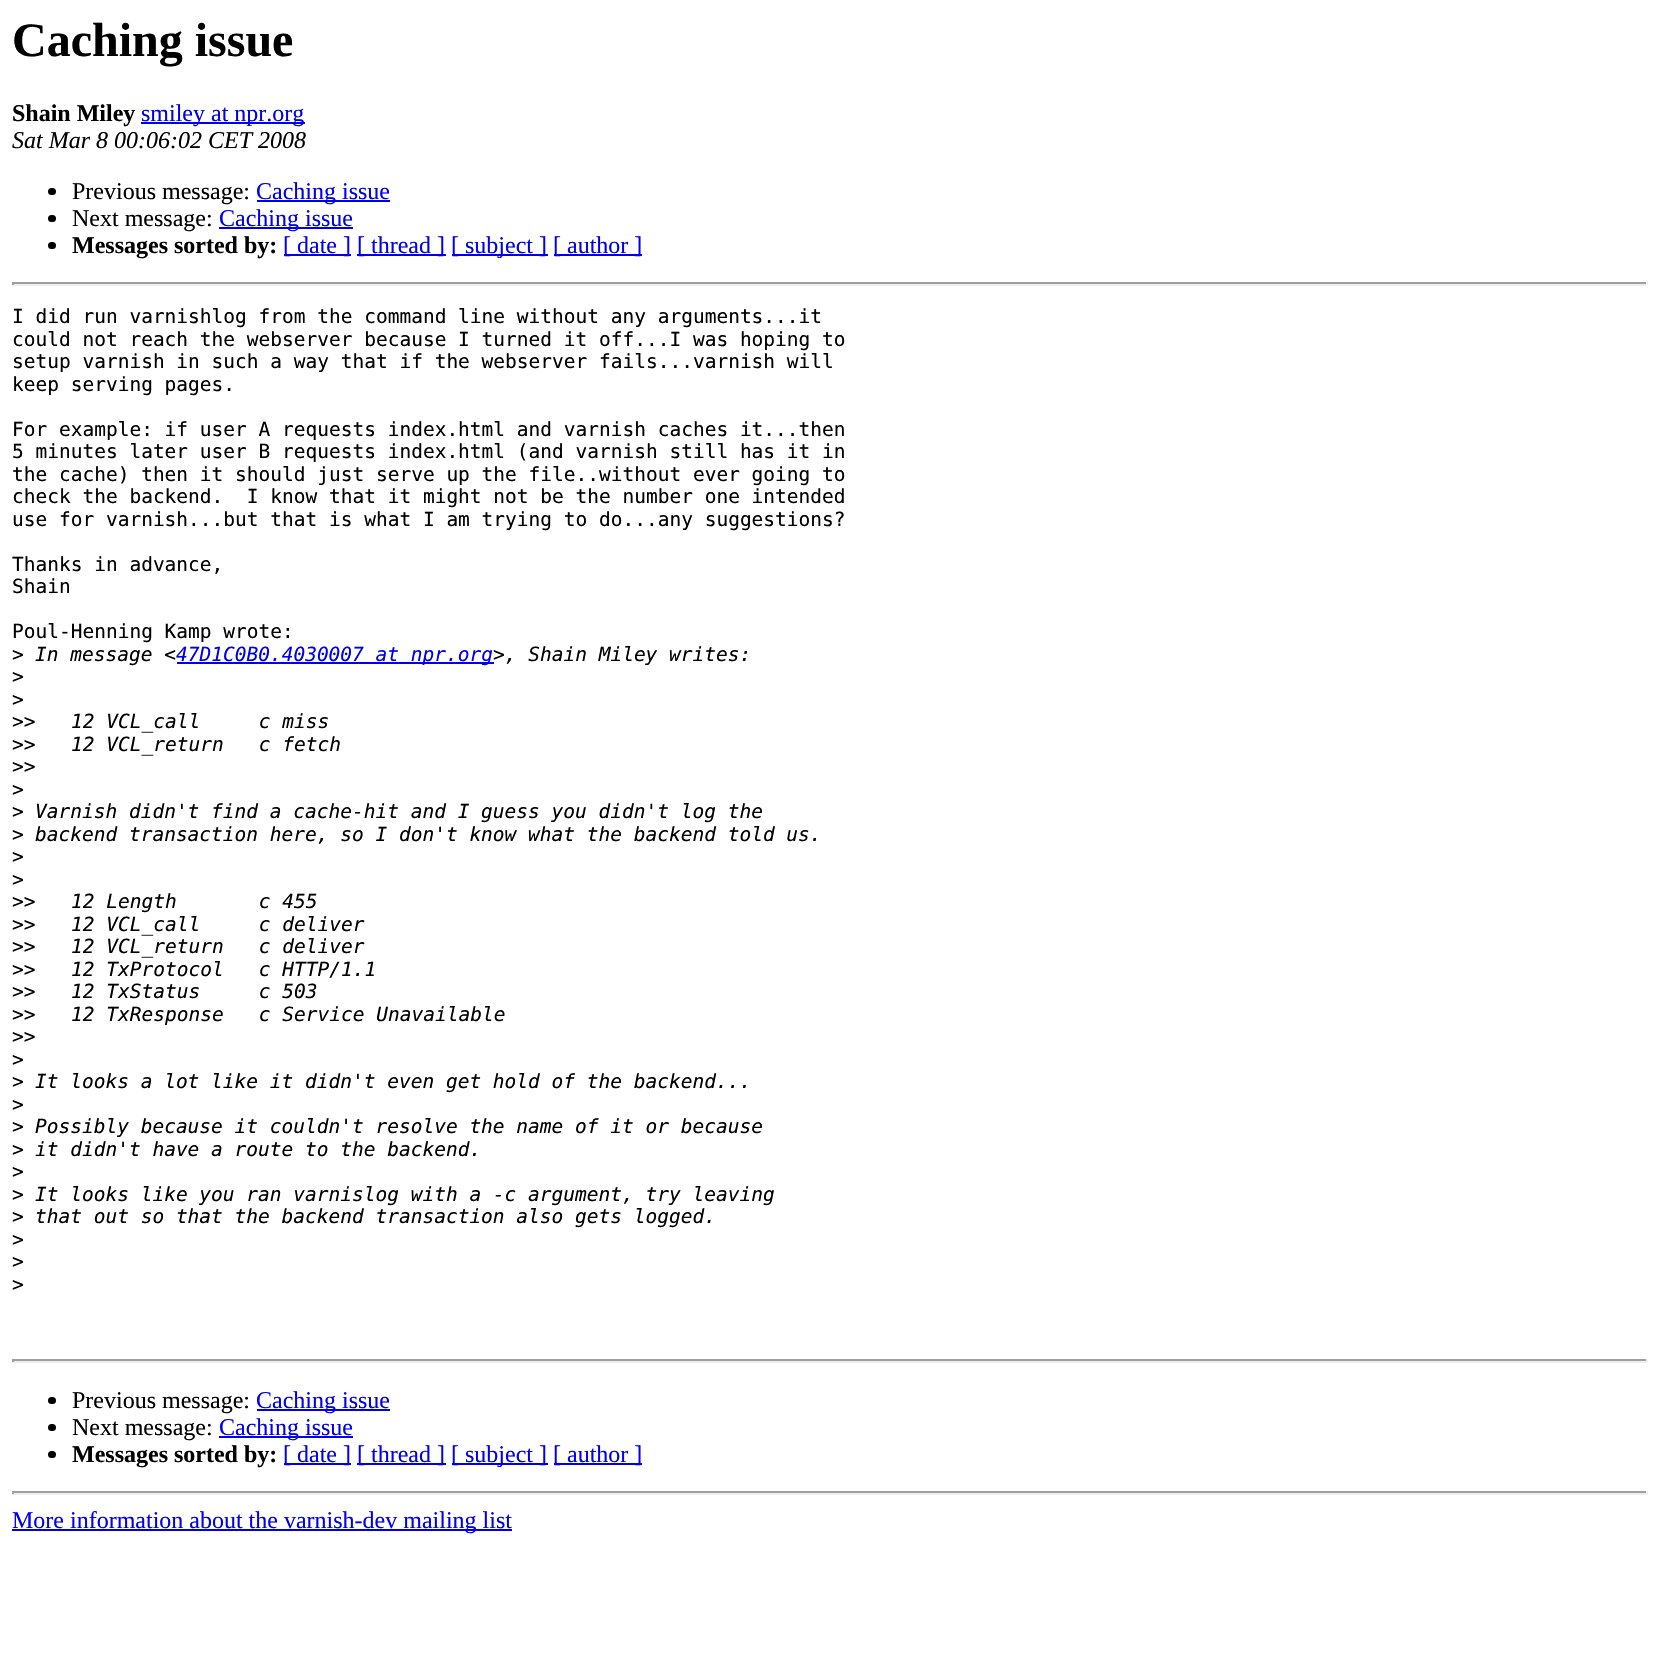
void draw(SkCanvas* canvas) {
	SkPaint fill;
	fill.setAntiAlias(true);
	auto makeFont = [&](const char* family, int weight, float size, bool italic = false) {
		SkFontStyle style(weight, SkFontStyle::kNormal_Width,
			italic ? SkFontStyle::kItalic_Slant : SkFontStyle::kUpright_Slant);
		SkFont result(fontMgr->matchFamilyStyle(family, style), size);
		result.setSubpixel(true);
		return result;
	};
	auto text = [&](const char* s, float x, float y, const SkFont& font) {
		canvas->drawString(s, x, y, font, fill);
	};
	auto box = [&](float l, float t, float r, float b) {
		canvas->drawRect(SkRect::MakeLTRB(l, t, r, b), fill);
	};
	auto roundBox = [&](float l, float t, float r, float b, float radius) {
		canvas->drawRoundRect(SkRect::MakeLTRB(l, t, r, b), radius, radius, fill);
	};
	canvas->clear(0xFFFFFFFF);
	fill.setColor(0xFF0000EE);
	box(141, 122, 305, 124);
	fill.setColor(0xFF000000);
	roundBox(48, 188, 56, 195, 3.5f);
	fill.setColor(0xFF0000EE);
	box(257, 200, 390, 202);
	fill.setColor(0xFF000000);
	roundBox(48, 215, 56, 222, 3.5f);
	fill.setColor(0xFF0000EE);
	box(219, 227, 353, 229);
	fill.setColor(0xFF000000);
	roundBox(48, 242, 56, 249, 3.5f);
	fill.setColor(0xFF0000EE);
	box(284, 254, 351, 256);
	box(357, 254, 446, 256);
	box(452, 254, 548, 256);
	box(554, 254, 642, 256);
	fill.setColor(0xFF9F9F9F);
	box(12, 282, 1647, 284);
	fill.setColor(0xFFEEEEEE);
	box(1646, 282, 1648, 285);
	box(12, 284, 1647, 286);
	fill.setColor(0xFF9F9F9F);
	box(12, 282, 14, 285);
	fill.setColor(0xFF0000EE);
	box(177, 662, 494, 664);
	fill.setColor(0xFF9F9F9F);
	box(12, 1359, 1647, 1361);
	fill.setColor(0xFFEEEEEE);
	box(1646, 1359, 1648, 1362);
	box(12, 1361, 1647, 1363);
	fill.setColor(0xFF9F9F9F);
	box(12, 1359, 14, 1362);
	fill.setColor(0xFF000000);
	roundBox(48, 1397, 56, 1404, 3.5f);
	fill.setColor(0xFF0000EE);
	box(257, 1409, 390, 1411);
	fill.setColor(0xFF000000);
	roundBox(48, 1424, 56, 1431, 3.5f);
	fill.setColor(0xFF0000EE);
	box(219, 1436, 353, 1438);
	fill.setColor(0xFF000000);
	roundBox(48, 1451, 56, 1458, 3.5f);
	fill.setColor(0xFF0000EE);
	box(284, 1463, 351, 1465);
	box(357, 1463, 446, 1465);
	box(452, 1463, 548, 1465);
	box(554, 1463, 642, 1465);
	fill.setColor(0xFF9F9F9F);
	box(12, 1491, 1647, 1493);
	fill.setColor(0xFFEEEEEE);
	box(1646, 1491, 1648, 1494);
	box(12, 1493, 1647, 1495);
	fill.setColor(0xFF9F9F9F);
	box(12, 1491, 14, 1494);
	fill.setColor(0xFF0000EE);
	box(12, 1529, 512, 1531);
	auto font1 = makeFont("Liberation Serif", 700, 48);
	fill.setColor(0xFF000000);
	text("Caching issue", 12, 56, font1);
	auto font2 = makeFont("Liberation Serif", 700, 24);
	text("Shain Miley", 12, 121, font2);
	auto font3 = makeFont("Liberation Serif", 400, 24);
	fill.setColor(0xFF0000EE);
	text("smiley at npr.org", 141, 121, font3);
	auto font4 = makeFont("Liberation Serif", 400, 24, true);
	fill.setColor(0xFF000000);
	text("Sat Mar 8 00:06:02 CET 2008", 12, 148, font4);
	text("Previous message:", 72, 199, font3);
	fill.setColor(0xFF0000EE);
	text("Caching issue", 256, 199, font3);
	fill.setColor(0xFF000000);
	text("Next message:", 72, 226, font3);
	fill.setColor(0xFF0000EE);
	text("Caching issue", 219, 226, font3);
	fill.setColor(0xFF000000);
	text("Messages sorted by:", 72, 253, font2);
	fill.setColor(0xFF0000EE);
	text("[ date ]", 283, 253, font3);
	text("[ thread ]", 357, 253, font3);
	text("[ subject ]", 451, 253, font3);
	text("[ author ]", 553, 253, font3);
	auto font5 = makeFont("DejaVu Sans Mono", 400, 19.5f);
	fill.setColor(0xFF000000);
	text("I did run varnishlog from the command line without any arguments...it", 12, 323, font5);
	text("could not reach the webserver because I turned it off...I was hoping to", 12, 346, font5);
	text("setup varnish in such a way that if the webserver fails...varnish will", 12, 368, font5);
	text("keep serving pages.", 12, 391, font5);
	text("For example: if user A requests index.html and varnish caches it...then", 12, 436, font5);
	text("5 minutes later user B requests index.html (and varnish still has it in", 12, 458, font5);
	text("the cache) then it should just serve up the file..without ever going to", 12, 481, font5);
	text("check the backend.  I know that it might not be the number one intended", 12, 503, font5);
	text("use for varnish...but that is what I am trying to do...any suggestions?", 12, 526, font5);
	text("Thanks in advance,", 12, 571, font5);
	text("Shain", 12, 593, font5);
	text("Poul-Henning Kamp wrote:", 12, 638, font5);
	text(">", 12, 661, font5);
	auto font6 = makeFont("DejaVu Sans Mono", 400, 19.5f, true);
	text("In message <", 35, 661, font6);
	fill.setColor(0xFF0000EE);
	text("47D1C0B0.4030007 at npr.org", 176, 661, font6);
	fill.setColor(0xFF000000);
	text(">, Shain Miley writes:", 493, 661, font6);
	text(">", 12, 683, font5);
	text(">", 12, 706, font5);
	text(">>", 12, 728, font5);
	text("12 VCL_call     c miss", 71, 728, font6);
	text(">>", 12, 751, font5);
	text("12 VCL_return   c fetch", 71, 751, font6);
	text(">>", 12, 773, font5);
	text(">", 12, 796, font5);
	text(">", 12, 818, font5);
	text("Varnish didn't find a cache-hit and I guess you didn't log the", 35, 818, font6);
	text(">", 12, 841, font5);
	text("backend transaction here, so I don't know what the backend told us.", 35, 841, font6);
	text(">", 12, 863, font5);
	text(">", 12, 886, font5);
	text(">>", 12, 908, font5);
	text("12 Length       c 455", 71, 908, font6);
	text(">>", 12, 931, font5);
	text("12 VCL_call     c deliver", 71, 931, font6);
	text(">>", 12, 953, font5);
	text("12 VCL_return   c deliver", 71, 953, font6);
	text(">>", 12, 976, font5);
	text("12 TxProtocol   c HTTP/1.1", 71, 976, font6);
	text(">>", 12, 998, font5);
	text("12 TxStatus     c 503", 71, 998, font6);
	text(">>", 12, 1021, font5);
	text("12 TxResponse   c Service Unavailable", 71, 1021, font6);
	text(">>", 12, 1043, font5);
	text(">", 12, 1066, font5);
	text(">", 12, 1088, font5);
	text("It looks a lot like it didn't even get hold of the backend...", 35, 1088, font6);
	text(">", 12, 1111, font5);
	text(">", 12, 1133, font5);
	text("Possibly because it couldn't resolve the name of it or because", 35, 1133, font6);
	text(">", 12, 1156, font5);
	text("it didn't have a route to the backend.", 35, 1156, font6);
	text(">", 12, 1178, font5);
	text(">", 12, 1201, font5);
	text("It looks like you ran varnislog with a -c argument, try leaving", 35, 1201, font6);
	text(">", 12, 1223, font5);
	text("that out so that the backend transaction also gets logged.", 35, 1223, font6);
	text(">", 12, 1246, font5);
	text(">", 12, 1268, font5);
	text(">", 12, 1291, font5);
	text("Previous message:", 72, 1408, font3);
	fill.setColor(0xFF0000EE);
	text("Caching issue", 256, 1408, font3);
	fill.setColor(0xFF000000);
	text("Next message:", 72, 1435, font3);
	fill.setColor(0xFF0000EE);
	text("Caching issue", 219, 1435, font3);
	fill.setColor(0xFF000000);
	text("Messages sorted by:", 72, 1462, font2);
	fill.setColor(0xFF0000EE);
	text("[ date ]", 283, 1462, font3);
	text("[ thread ]", 357, 1462, font3);
	text("[ subject ]", 451, 1462, font3);
	text("[ author ]", 553, 1462, font3);
	text("More information about the varnish-dev mailing list", 12, 1528, font3);
}
